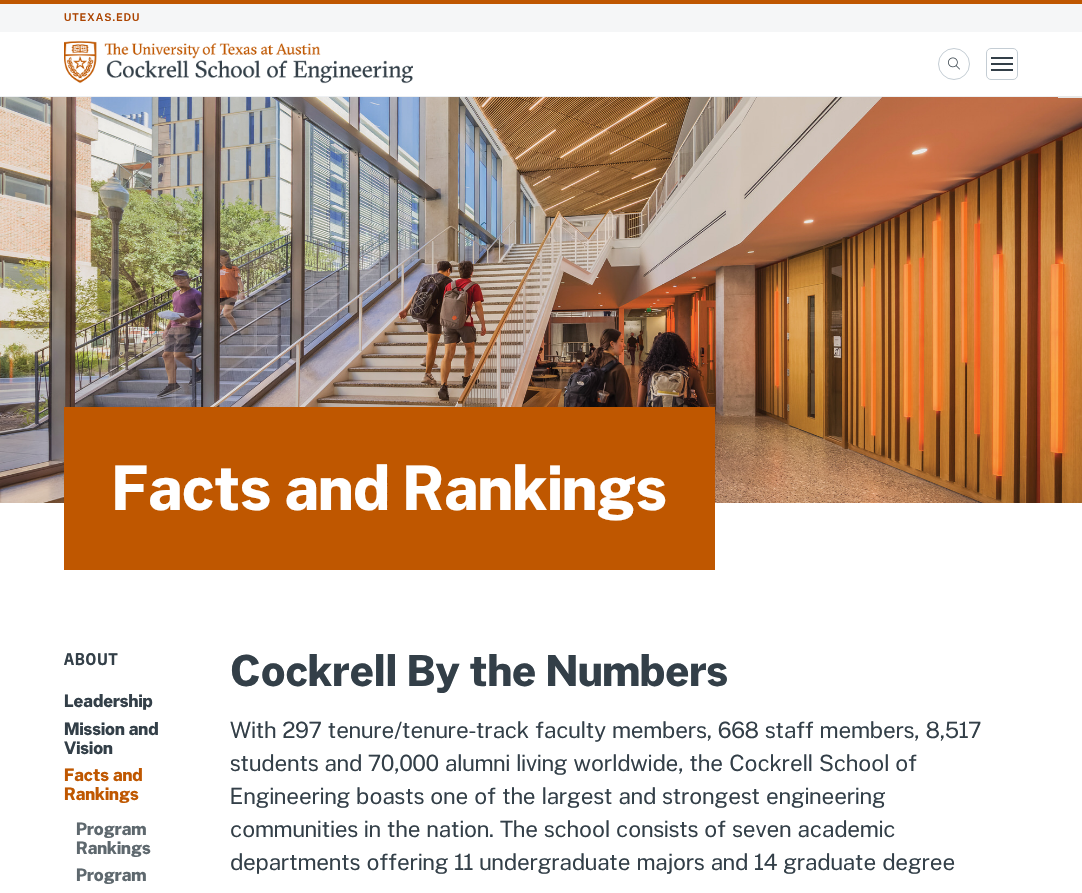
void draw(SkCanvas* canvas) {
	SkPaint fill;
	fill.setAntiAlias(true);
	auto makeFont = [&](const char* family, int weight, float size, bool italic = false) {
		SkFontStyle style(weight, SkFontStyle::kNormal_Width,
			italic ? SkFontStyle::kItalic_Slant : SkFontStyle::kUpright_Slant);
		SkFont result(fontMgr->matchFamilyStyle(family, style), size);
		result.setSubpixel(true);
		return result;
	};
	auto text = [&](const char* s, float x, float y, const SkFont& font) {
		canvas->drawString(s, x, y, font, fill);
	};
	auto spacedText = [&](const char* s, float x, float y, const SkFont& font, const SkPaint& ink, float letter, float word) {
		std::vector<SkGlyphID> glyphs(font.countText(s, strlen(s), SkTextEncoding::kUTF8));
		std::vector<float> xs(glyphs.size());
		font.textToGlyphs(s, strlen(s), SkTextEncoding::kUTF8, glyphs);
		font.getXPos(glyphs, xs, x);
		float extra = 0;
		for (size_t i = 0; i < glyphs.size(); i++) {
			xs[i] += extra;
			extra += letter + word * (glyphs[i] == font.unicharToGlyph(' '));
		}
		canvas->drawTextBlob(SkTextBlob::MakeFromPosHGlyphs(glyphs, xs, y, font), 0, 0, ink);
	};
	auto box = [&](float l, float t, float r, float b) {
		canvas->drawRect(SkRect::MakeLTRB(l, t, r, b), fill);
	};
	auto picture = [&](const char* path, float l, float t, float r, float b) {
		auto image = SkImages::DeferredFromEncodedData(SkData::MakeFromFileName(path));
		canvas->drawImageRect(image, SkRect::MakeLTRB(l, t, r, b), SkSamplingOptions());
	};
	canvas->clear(0xFFFFFFFF);
	fill.setColor(0xFFEEF0F2);
	box(0, 96, 1058, 97);
	fill.setColor(0xFFF5F6F7);
	box(0, 4, 1082, 32);
	fill.setColor(0xFFBF5700);
	box(0, 0, 1082, 4);
	picture("image0.png", 64, 40, 413, 84);
	fill.setStyle(SkPaint::kStroke_Style);
	fill.setStrokeWidth(1);
	fill.setColor(0xFFC4CDD4);
	canvas->drawCircle(954, 64, 15.5f, fill);
	picture("image1.png", 948, 57, 960, 70);
	canvas->drawRoundRect(SkRect::MakeLTRB(986.5f, 48.5f, 1017.5f, 79.5f), 4.5f, 4.5f, fill);
	fill.setStyle(SkPaint::kFill_Style);
	fill.setColor(0xFF333F48);
	box(991, 57, 1013, 59);
	box(991, 63, 1013, 65);
	box(991, 69, 1013, 71);
	picture("image2.png", 0, 97, 1082, 503);
	fill.setColor(0xFFE8E9E9);
	box(1058, 96, 1082, 98);
	fill.setColor(0xFFBF5700);
	box(64, 407, 715, 570);
	auto font1 = makeFont("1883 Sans", 500, 10.5f);
	fill.setColor(0xFFAC4400);
	spacedText("UTEXAS.EDU", 64, 21, font1, fill, 1, 0);
	auto font2 = makeFont("1883 Sans", 700, 60);
	fill.setColor(0xFFFFFFFF);
	text("Facts and Rankings", 112, 510, font2);
	auto font3 = makeFont("Encode Sans Condensed", 700, 16);
	fill.setColor(0xFF333F48);
	spacedText("ABOUT", 64, 665, font3, fill, 1, 0);
	auto font4 = makeFont("1883 Sans", 700, 17);
	text("Leadership", 64, 707, font4);
	text("Mission and", 64, 735, font4);
	text("Vision", 64, 754, font4);
	fill.setColor(0xFFBF5700);
	text("Facts and", 64, 781, font4);
	text("Rankings", 64, 800, font4);
	fill.setColor(0xFF5E686E);
	text("Program", 76, 835, font4);
	text("Rankings", 76, 854, font4);
	text("Program", 76, 881, font4);
	auto font5 = makeFont("1883 Sans", 700, 42);
	fill.setColor(0xFF333F48);
	text("Cockrell By the Numbers", 230, 686, font5);
	auto font6 = makeFont("1883 Sans", 300, 22);
	text("With 297 tenure/tenure-track faculty members, 668 staff members, 8,517", 230, 738, font6);
	text("students and 70,000 alumni living worldwide, the Cockrell School of", 230, 771, font6);
	text("Engineering boasts one of the largest and strongest engineering", 230, 804, font6);
	text("communities in the nation. The school consists of seven academic", 230, 837, font6);
	text("departments offering 11 undergraduate majors and 14 graduate degree", 230, 870, font6);
}
